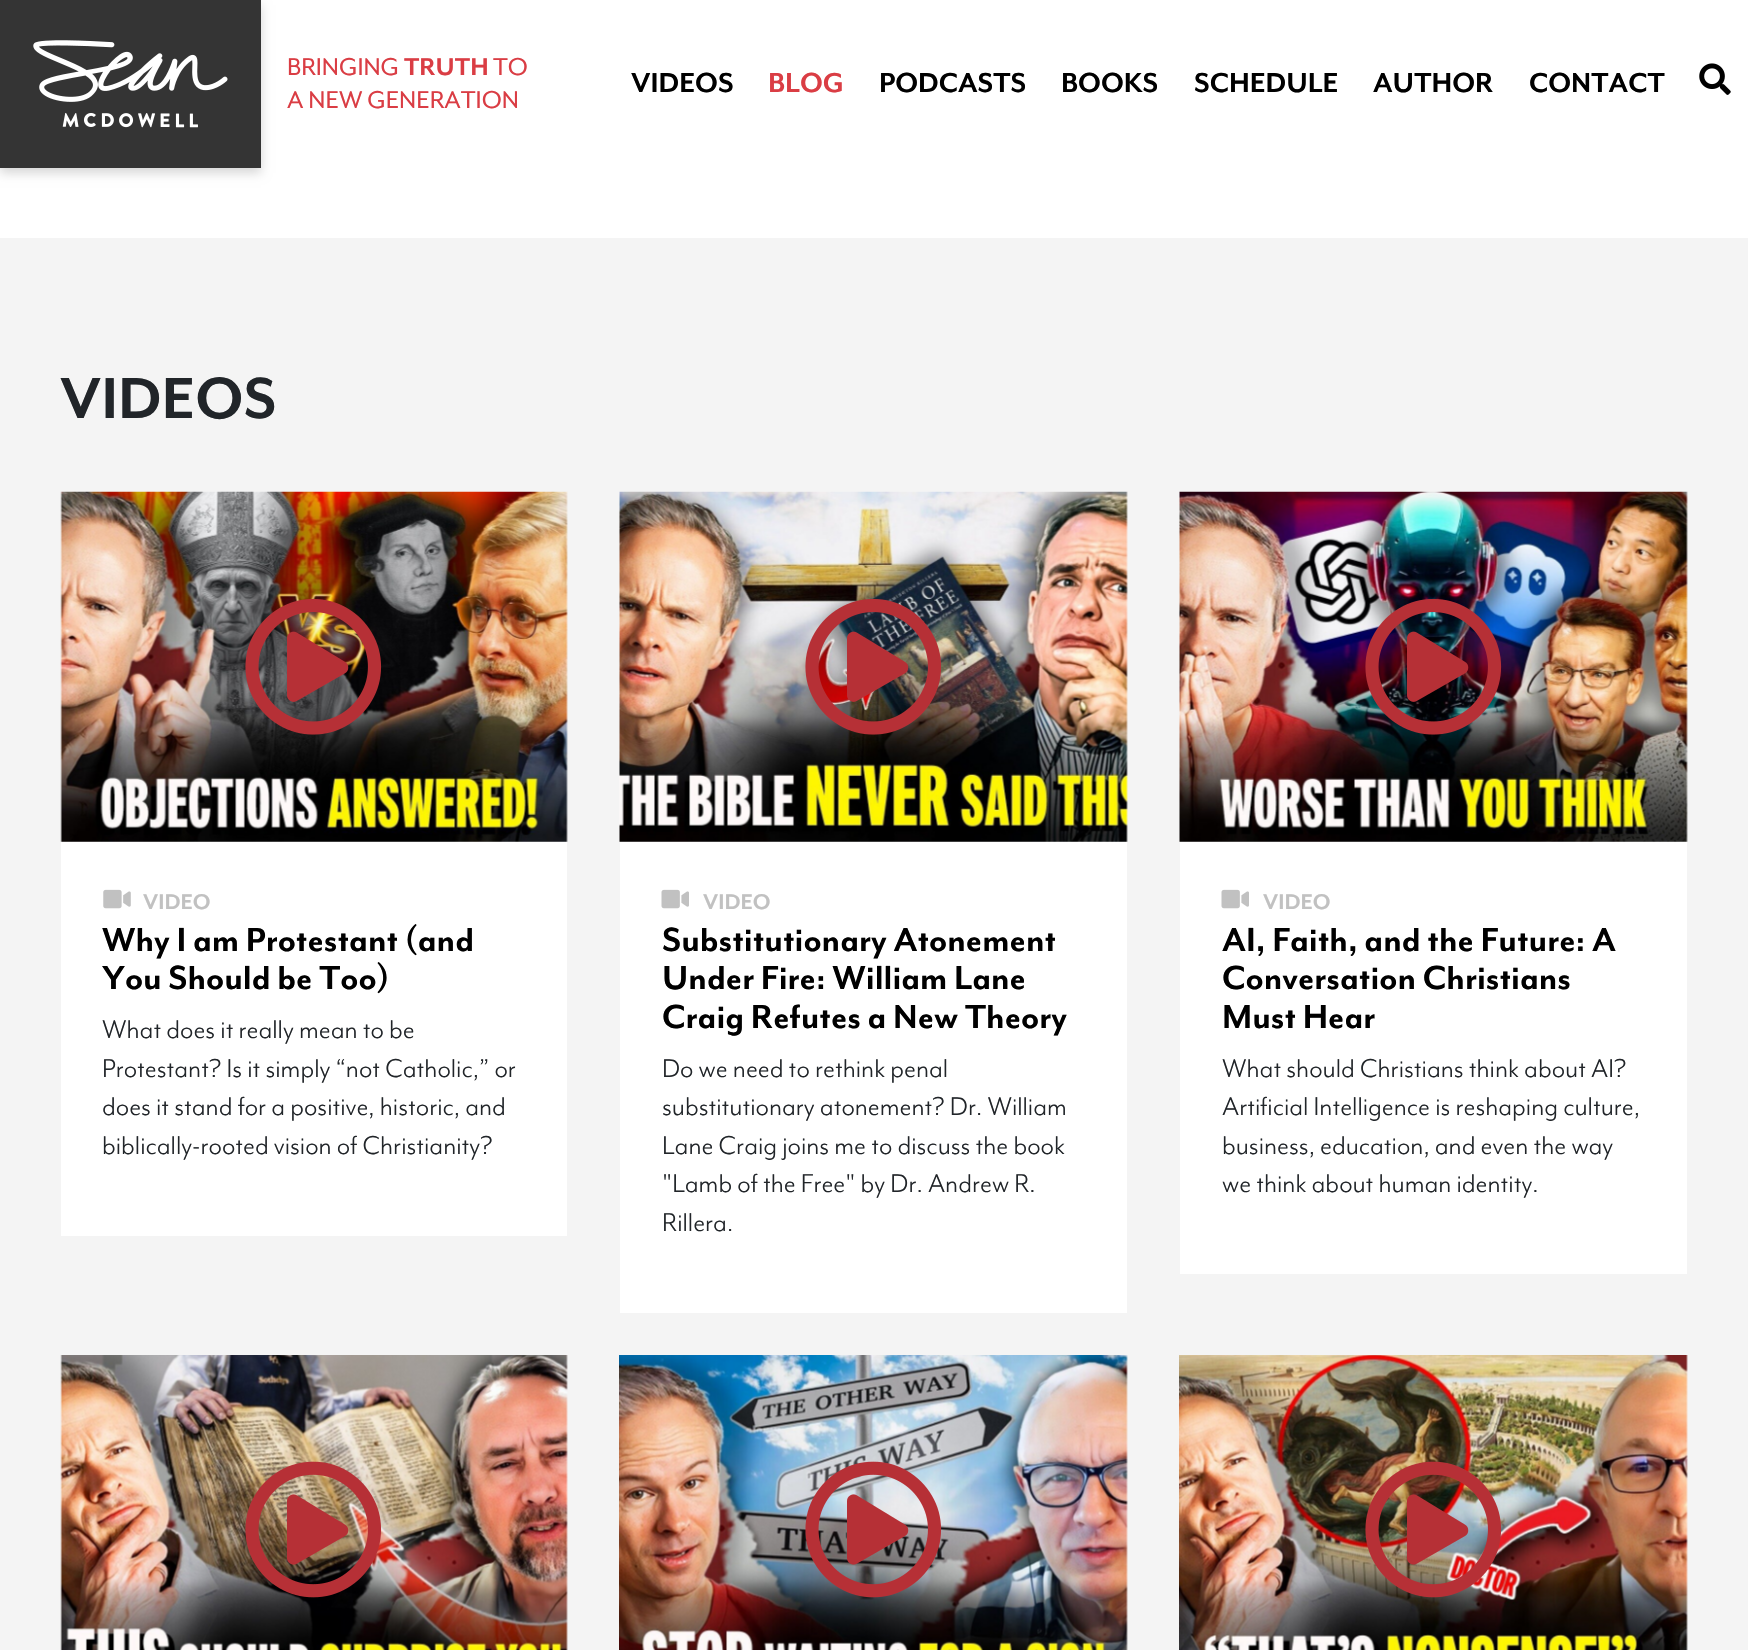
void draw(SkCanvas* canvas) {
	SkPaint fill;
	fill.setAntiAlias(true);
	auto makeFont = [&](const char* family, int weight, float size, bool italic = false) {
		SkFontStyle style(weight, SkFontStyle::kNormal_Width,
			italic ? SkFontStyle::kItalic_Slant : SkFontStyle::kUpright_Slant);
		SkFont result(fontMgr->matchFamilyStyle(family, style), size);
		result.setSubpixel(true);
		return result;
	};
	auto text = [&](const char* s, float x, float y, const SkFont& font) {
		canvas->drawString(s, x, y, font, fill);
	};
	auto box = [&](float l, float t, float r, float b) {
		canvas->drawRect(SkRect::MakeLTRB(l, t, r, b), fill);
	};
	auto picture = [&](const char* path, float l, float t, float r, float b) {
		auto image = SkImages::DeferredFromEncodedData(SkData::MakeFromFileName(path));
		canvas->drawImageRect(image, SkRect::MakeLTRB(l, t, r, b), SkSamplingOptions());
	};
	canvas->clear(0xFFFFFFFF);
	fill.setColor(0x29000000);
	fill.setMaskFilter(SkMaskFilter::MakeBlur(kNormal_SkBlurStyle, 5));
	canvas->drawRect(SkRect::MakeLTRB(0, 5, 261, 173), fill);
	fill.setMaskFilter(nullptr);
	fill.setColor(0xFF343434);
	box(0, 0, 261, 168);
	picture("image0.png", 33, 40, 228, 128);
	picture("image1.png", 1699, 63, 1731, 95);
	fill.setColor(0xFFF4F4F4);
	box(0, 238, 1748, 1650);
	picture("image2.png", 60, 491, 568, 842);
	picture("image3.png", 245, 598, 382, 735);
	fill.setColor(0xFFFFFFFF);
	box(61, 842, 567, 1236);
	picture("image4.png", 103, 889, 131, 909);
	picture("image5.png", 619, 491, 1128, 842);
	picture("image6.png", 805, 598, 941, 735);
	box(620, 842, 1127, 1313);
	picture("image7.png", 661, 889, 689, 909);
	picture("image8.png", 1179, 491, 1688, 842);
	picture("image9.png", 1365, 598, 1502, 735);
	box(1180, 842, 1687, 1274);
	picture("image7.png", 1221, 889, 1249, 909);
	picture("image10.png", 60, 1355, 568, 1650);
	picture("image11.png", 245, 1461, 382, 1598);
	picture("image12.png", 619, 1355, 1128, 1650);
	picture("image13.png", 805, 1461, 942, 1598);
	picture("image14.png", 1179, 1355, 1688, 1650);
	picture("image15.png", 1365, 1461, 1502, 1598);
	auto font1 = makeFont("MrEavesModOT", 400, 28);
	fill.setColor(0xFFDA3D44);
	text("BRINGING", 287, 75, font1);
	auto font2 = makeFont("MrEavesModOT", 700, 28);
	text("TRUTH", 404, 75, font2);
	text("TO", 493, 75, font1);
	text("A NEW GENERATION", 287, 108, font1);
	auto font3 = makeFont("MrEavesModOT", 700, 31.5f);
	fill.setColor(0xFF000000);
	text("VIDEOS", 631, 92, font3);
	fill.setColor(0xFFDA3D44);
	text("BLOG", 768, 92, font3);
	fill.setColor(0xFF000000);
	text("PODCASTS", 879, 92, font3);
	text("BOOKS", 1061, 92, font3);
	text("SCHEDULE", 1194, 92, font3);
	text("AUTHOR", 1373, 92, font3);
	text("CONTACT", 1529, 92, font3);
	auto font4 = makeFont("MrEavesModOT", 700, 66.5f);
	fill.setColor(0xFF212529);
	text("VIDEOS", 60, 418, font4);
	auto font5 = makeFont("MrEavesModOT", 700, 24.5f);
	fill.setColor(0xFFC1C1C1);
	text("VIDEO", 143, 909, font5);
	auto font6 = makeFont("MrEavesModOT", 700, 38.5f);
	fill.setColor(0xFF000000);
	text("Why I am Protestant (and", 102, 951, font6);
	text("You Should be Too)", 102, 989, font6);
	auto font7 = makeFont("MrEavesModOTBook", 400, 29.75f);
	fill.setColor(0xFF212529);
	text("What does it really mean to be", 102, 1038, font7);
	text("Protestant? Is it simply “not Catholic,” or", 102, 1077, font7);
	text("does it stand for a positive, historic, and", 102, 1115, font7);
	text("biblically-rooted vision of Christianity?", 102, 1154, font7);
	fill.setColor(0xFFC1C1C1);
	text("VIDEO", 703, 909, font5);
	fill.setColor(0xFF000000);
	text("Substitutionary Atonement", 662, 951, font6);
	text("Under Fire: William Lane", 662, 989, font6);
	text("Craig Refutes a New Theory", 662, 1028, font6);
	fill.setColor(0xFF212529);
	text("Do we need to rethink penal", 662, 1077, font7);
	text("substitutionary atonement? Dr. William", 662, 1115, font7);
	text("Lane Craig joins me to discuss the book", 662, 1154, font7);
	text("\"Lamb of the Free\" by Dr. Andrew R.", 662, 1192, font7);
	text("Rillera.", 662, 1231, font7);
	fill.setColor(0xFFC1C1C1);
	text("VIDEO", 1263, 909, font5);
	fill.setColor(0xFF000000);
	text("AI, Faith, and the Future: A", 1222, 951, font6);
	text("Conversation Christians", 1222, 989, font6);
	text("Must Hear", 1222, 1028, font6);
	fill.setColor(0xFF212529);
	text("What should Christians think about AI?", 1222, 1077, font7);
	text("Artificial Intelligence is reshaping culture,", 1222, 1115, font7);
	text("business, education, and even the way", 1222, 1154, font7);
	text("we think about human identity.", 1222, 1192, font7);
}
